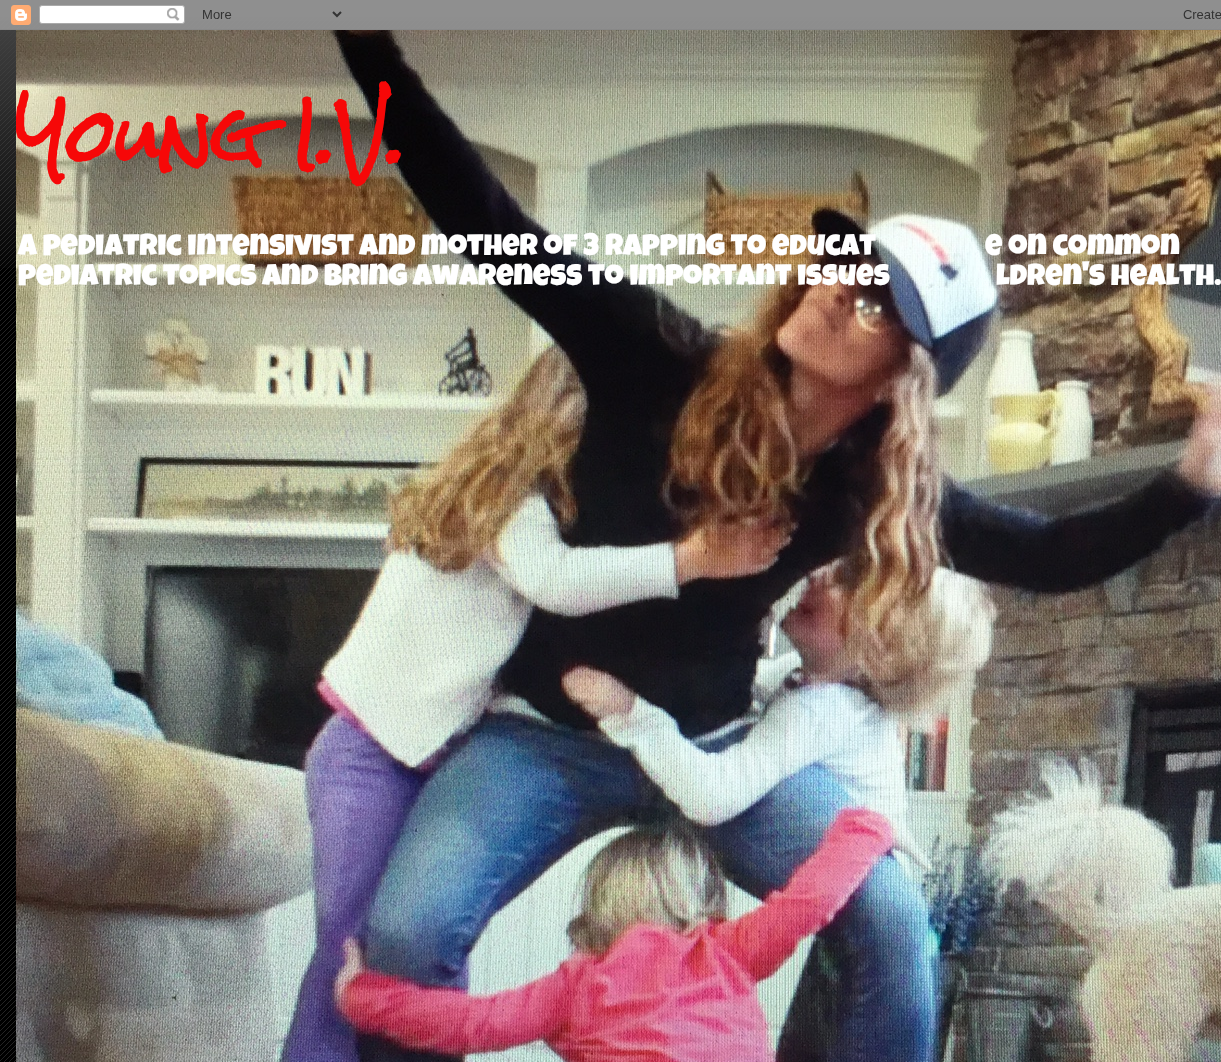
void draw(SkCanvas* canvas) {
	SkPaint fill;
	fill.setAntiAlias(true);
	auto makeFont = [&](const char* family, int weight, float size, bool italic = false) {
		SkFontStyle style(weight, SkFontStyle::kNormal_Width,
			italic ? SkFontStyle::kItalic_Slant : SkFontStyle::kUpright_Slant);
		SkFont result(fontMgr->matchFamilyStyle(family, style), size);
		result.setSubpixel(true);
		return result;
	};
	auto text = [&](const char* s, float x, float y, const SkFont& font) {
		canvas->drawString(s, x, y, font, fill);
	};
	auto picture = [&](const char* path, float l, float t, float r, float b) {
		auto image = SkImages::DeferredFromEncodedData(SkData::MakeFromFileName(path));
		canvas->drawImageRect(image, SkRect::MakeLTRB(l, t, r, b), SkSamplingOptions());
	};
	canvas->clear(0xFF000000);
	picture("image0.png", 0, 13, 1221, 1062);
	picture("image1.png", 0, 0, 1221, 268);
	picture("image2.png", 0, 0, 1221, 30);
	picture("image3.png", 16, 30, 1221, 1062);
	canvas->save();
	canvas->clipRect(SkRect::MakeLTRB(16, 30, 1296, 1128));
	auto font1 = makeFont("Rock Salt", 700, 70);
	fill.setColor(0xFFF60808);
	text("Young I.V.", 16, 164, font1);
	canvas->restore();
	auto font2 = makeFont("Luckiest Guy", 400, 30);
	fill.setColor(0xFFFFFFFF);
	text("A pediatric intensivist and mother of 3 rapping to educat", 18, 255, font2);
	text("e on common", 985, 255, font2);
	text("pediatric topics and bring awareness to important issues", 18, 285, font2);
	text("ldren's health.", 996, 285, font2);
}
